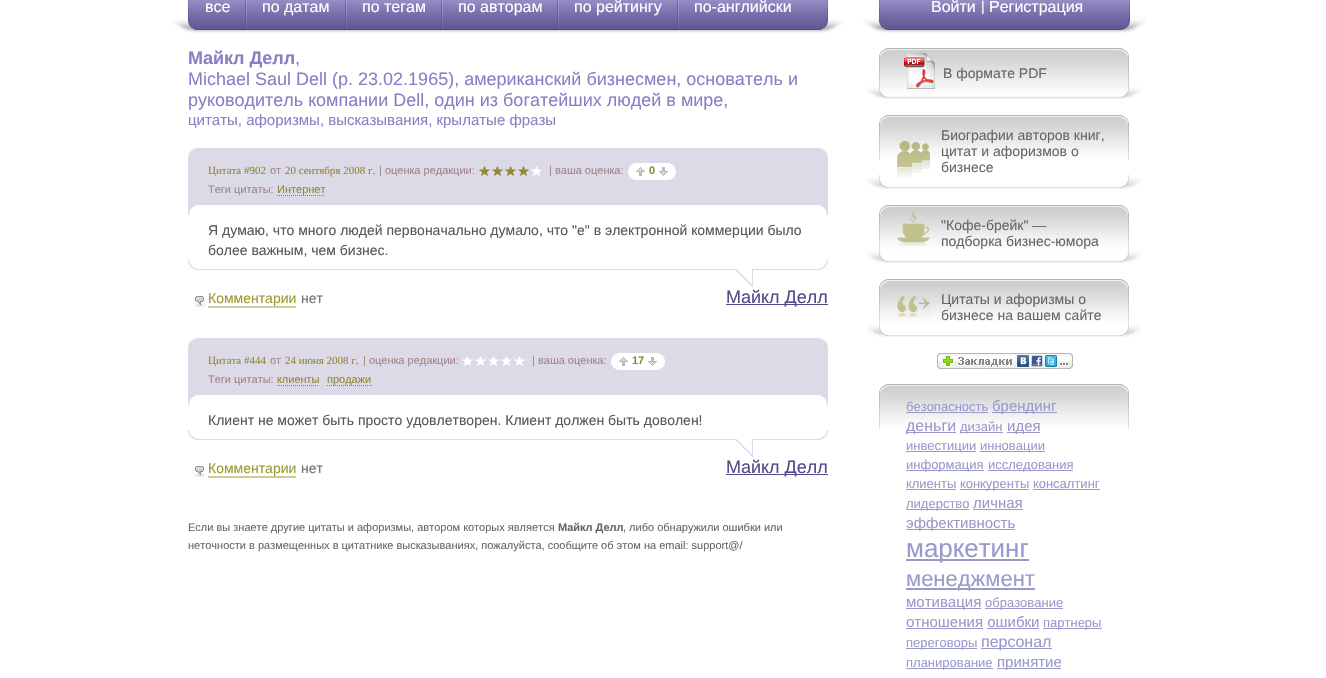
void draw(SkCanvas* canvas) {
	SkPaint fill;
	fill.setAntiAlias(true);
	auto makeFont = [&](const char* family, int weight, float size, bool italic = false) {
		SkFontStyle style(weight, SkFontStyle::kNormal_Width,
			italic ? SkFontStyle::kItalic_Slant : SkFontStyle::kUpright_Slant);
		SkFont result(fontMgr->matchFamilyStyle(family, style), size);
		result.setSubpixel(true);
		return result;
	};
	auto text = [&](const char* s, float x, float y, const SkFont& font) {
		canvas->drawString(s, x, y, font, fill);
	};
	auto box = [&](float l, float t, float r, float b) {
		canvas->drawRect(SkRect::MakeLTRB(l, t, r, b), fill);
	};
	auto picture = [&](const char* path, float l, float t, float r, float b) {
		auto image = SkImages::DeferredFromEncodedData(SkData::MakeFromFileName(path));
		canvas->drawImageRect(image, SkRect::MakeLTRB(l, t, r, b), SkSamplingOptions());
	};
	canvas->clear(0xFFFFFFFF);
	picture("image0.png", 172, 0, 195, 33);
	picture("image1.png", 821, 0, 844, 33);
	picture("image2.png", 195, 0, 821, 33);
	picture("image3.png", 245, 0, 247, 29);
	picture("image3.png", 345, 0, 347, 29);
	picture("image3.png", 441, 0, 443, 29);
	picture("image3.png", 557, 0, 559, 29);
	picture("image3.png", 677, 0, 679, 29);
	fill.setColor(0xFFDDDAE7);
	box(188, 157, 828, 205);
	picture("image4.png", 188, 148, 828, 157);
	picture("image5.png", 531, 166, 542, 176);
	picture("image6.png", 479, 166, 529, 176);
	picture("image7.png", 668, 163, 676, 180);
	picture("image8.png", 628, 163, 636, 180);
	fill.setColor(0xFFFFFFFF);
	box(636, 163, 668, 180);
	picture("image9.png", 636, 167, 645, 176);
	picture("image10.png", 659, 167, 668, 176);
	fill.setStyle(SkPaint::kStroke_Style);
	fill.setStrokeWidth(1);
	fill.setColor(0xFF928637);
	fill.setPathEffect(SkDashPathEffect::Make({{1, 1}}, 0));
	canvas->drawPath(SkPathBuilder().moveTo(277, 195.5f).lineTo(325, 195.5f).detach(), fill);
	fill.setPathEffect(nullptr);
	picture("image11.png", 188, 205, 828, 215);
	picture("image12.png", 188, 260, 828, 287);
	picture("image13.png", 194, 296, 206, 307);
	fill.setStyle(SkPaint::kFill_Style);
	fill.setColor(0xFFCCCC99);
	box(208, 306, 296, 308);
	fill.setColor(0xFF564789);
	box(726, 304, 828, 305);
	fill.setColor(0xFFDDDAE7);
	box(188, 347, 828, 395);
	picture("image4.png", 188, 338, 828, 347);
	picture("image14.png", 462, 356, 525, 366);
	picture("image7.png", 657, 353, 665, 370);
	picture("image8.png", 611, 353, 619, 370);
	fill.setColor(0xFFFFFFFF);
	box(619, 353, 657, 370);
	picture("image9.png", 619, 357, 628, 366);
	picture("image10.png", 648, 357, 657, 366);
	fill.setStyle(SkPaint::kStroke_Style);
	fill.setColor(0xFF928637);
	fill.setPathEffect(SkDashPathEffect::Make({{1, 1}}, 0));
	canvas->drawPath(SkPathBuilder().moveTo(277, 385.5f).lineTo(319, 385.5f).detach(), fill);
	fill.setPathEffect(nullptr);
	fill.setPathEffect(SkDashPathEffect::Make({{1, 1}}, 0));
	canvas->drawPath(SkPathBuilder().moveTo(327, 385.5f).lineTo(372, 385.5f).detach(), fill);
	fill.setPathEffect(nullptr);
	picture("image11.png", 188, 395, 828, 405);
	picture("image12.png", 188, 430, 828, 457);
	picture("image13.png", 194, 466, 206, 477);
	fill.setStyle(SkPaint::kFill_Style);
	fill.setColor(0xFFCCCC99);
	box(208, 476, 296, 478);
	fill.setColor(0xFF564789);
	box(726, 474, 828, 475);
	picture("image15.png", 863, 0, 887, 33);
	picture("image16.png", 1120, 0, 1146, 33);
	picture("image17.png", 887, 0, 1120, 33);
	picture("image18.png", 866, 48, 1142, 99);
	picture("image19.png", 904, 53, 935, 89);
	picture("image20.png", 879, 115, 1129, 160);
	picture("image22.png", 866, 175, 1142, 189);
	picture("image21.png", 897, 141, 930, 178);
	picture("image23.png", 879, 205, 1129, 249);
	picture("image24.png", 897, 211, 930, 246);
	picture("image22.png", 866, 249, 1142, 263);
	picture("image23.png", 879, 279, 1129, 323);
	picture("image25.png", 897, 296, 930, 317);
	picture("image22.png", 866, 323, 1142, 337);
	picture("image26.png", 937, 353, 1073, 369);
	picture("image20.png", 879, 384, 1129, 429);
	fill.setColor(0xFF9999CC);
	box(906, 412, 988, 413);
	box(992, 412, 1057, 413);
	box(906, 432, 956, 433);
	box(960, 432, 1003, 433);
	box(1007, 432, 1040, 433);
	box(906, 451, 976, 452);
	box(980, 451, 1045, 452);
	box(906, 470, 984, 471);
	box(988, 470, 1073, 471);
	box(906, 489, 956, 490);
	box(960, 489, 1029, 490);
	box(1033, 489, 1100, 490);
	box(906, 509, 969, 510);
	box(973, 509, 1023, 510);
	box(906, 529, 1015, 530);
	box(906, 559, 1029, 561);
	box(906, 588, 1035, 590);
	box(906, 608, 981, 609);
	box(985, 608, 1063, 609);
	box(906, 628, 983, 629);
	box(1043, 628, 1102, 629);
	box(987, 628, 1039, 629);
	box(906, 648, 977, 649);
	box(981, 648, 1052, 649);
	box(906, 668, 993, 669);
	box(997, 668, 1061, 669);
	auto font1 = makeFont("Liberation Sans", 400, 16);
	fill.setColor(0xFFFFFFFF);
	text("все", 205, 12, font1);
	text("по датам", 262, 12, font1);
	text("по тегам", 362, 12, font1);
	text("по авторам", 458, 12, font1);
	text("по рейтингу", 574, 12, font1);
	text("по-английски", 694, 12, font1);
	auto font2 = makeFont("Liberation Sans", 700, 18);
	fill.setColor(0xFF8D7DC4);
	text("Майкл Делл", 188, 64, font2);
	auto font3 = makeFont("Liberation Sans", 400, 18);
	text(",", 295, 64, font3);
	text("Michael Saul Dell (р. 23.02.1965), американский бизнесмен, основатель и", 188, 85, font3);
	text("руководитель компании Dell, один из богатейших людей в мире,", 188, 106, font3);
	auto font4 = makeFont("Liberation Sans", 400, 15);
	text("цитаты, афоризмы, высказывания, крылатые фразы", 188, 125, font4);
	auto font5 = makeFont("Liberation Serif", 400, 11);
	fill.setColor(0xFF928637);
	text("Цитата #902", 208, 174, font5);
	auto font6 = makeFont("Liberation Sans", 400, 11);
	fill.setColor(0xFF9F8484);
	text("от", 270, 174, font6);
	fill.setColor(0xFF928637);
	text("20 сентября 2008 г.", 285, 174, font5);
	fill.setColor(0xFF9F8484);
	text("| оценка редакции:", 379, 174, font6);
	text("| ваша оценка:", 549, 174, font6);
	auto font7 = makeFont("Liberation Sans", 700, 11);
	fill.setColor(0xFF928637);
	text("0", 649, 174, font7);
	fill.setColor(0xFF9F8484);
	text("Теги цитаты:", 208, 193, font6);
	fill.setColor(0xFF928637);
	text("Интернет", 277, 193, font6);
	auto font8 = makeFont("Liberation Sans", 400, 14);
	fill.setColor(0xFF575757);
	text("Я думаю, что много людей первоначально думало, что \"e\" в электронной коммерции было", 208, 235, font8);
	text("более важным, чем бизнес.", 208, 255, font8);
	fill.setColor(0xFF999933);
	text("Комментарии", 208, 303, font8);
	fill.setColor(0xFF6F6F6F);
	text("нет", 301, 303, font8);
	fill.setColor(0xFF564789);
	text("Майкл Делл", 726, 303, font3);
	fill.setColor(0xFF928637);
	text("Цитата #444", 208, 364, font5);
	fill.setColor(0xFF9F8484);
	text("от", 270, 364, font6);
	fill.setColor(0xFF928637);
	text("24 июня 2008 г.", 285, 364, font5);
	fill.setColor(0xFF9F8484);
	text("| оценка редакции:", 363, 364, font6);
	text("| ваша оценка:", 532, 364, font6);
	fill.setColor(0xFF928637);
	text("17", 632, 364, font7);
	fill.setColor(0xFF9F8484);
	text("Теги цитаты:", 208, 383, font6);
	fill.setColor(0xFF928637);
	text("клиенты", 277, 383, font6);
	text("продажи", 327, 383, font6);
	fill.setColor(0xFF575757);
	text("Клиент не может быть просто удовлетворен. Клиент должен быть доволен!", 208, 425, font8);
	fill.setColor(0xFF999933);
	text("Комментарии", 208, 473, font8);
	fill.setColor(0xFF6F6F6F);
	text("нет", 301, 473, font8);
	fill.setColor(0xFF564789);
	text("Майкл Делл", 726, 473, font3);
	fill.setColor(0xFF666666);
	text("Если вы знаете другие цитаты и афоризмы, автором которых является", 188, 531, font6);
	text("Майкл Делл", 558, 531, font7);
	text(", либо обнаружили ошибки или", 623, 531, font6);
	text("неточности в размещенных в цитатнике высказываниях, пожалуйста, сообщите об этом на email: support@/", 188, 549, font6);
	fill.setColor(0xFFFFFFFF);
	text("Войти", 931, 12, font1);
	text("|", 981, 11, font8);
	text("Регистрация", 989, 12, font1);
	fill.setColor(0xFF666666);
	text("В формате PDF", 943, 78, font8);
	text("Биографии авторов книг,", 941, 140, font8);
	text("цитат и афоризмов о", 941, 156, font8);
	text("бизнесе", 941, 172, font8);
	text("\"Кофе-брейк\" —", 941, 230, font8);
	text("подборка бизнес-юмора", 941, 246, font8);
	text("Цитаты и афоризмы о", 941, 304, font8);
	text("бизнесе на вашем сайте", 941, 320, font8);
	auto font9 = makeFont("Liberation Sans", 400, 13);
	fill.setColor(0xFF9999CC);
	text("безопасность", 906, 411, font9);
	text("брендинг", 992, 411, font4);
	text("деньги", 906, 431, font1);
	text("дизайн", 960, 431, font9);
	text("идея", 1007, 431, font4);
	text("инвестиции", 906, 450, font9);
	text("инновации", 980, 450, font9);
	text("информация", 906, 469, font9);
	text("исследования", 988, 469, font9);
	text("клиенты", 906, 488, font9);
	text("конкуренты", 960, 488, font9);
	text("консалтинг", 1033, 488, font9);
	text("лидерство", 906, 508, font9);
	text("личная", 973, 508, font4);
	text("эффективность", 906, 528, font4);
	auto font10 = makeFont("Liberation Sans", 400, 26);
	text("маркетинг", 906, 557, font10);
	auto font11 = makeFont("Liberation Sans", 400, 22);
	text("менеджмент", 906, 586, font11);
	text("мотивация", 906, 607, font4);
	text("образование", 985, 607, font9);
	text("отношения ошибки", 906, 627, font4);
	text("партнеры", 1043, 627, font9);
	text("переговоры", 906, 647, font9);
	text("персонал", 981, 647, font1);
	text("планирование", 906, 667, font9);
	text("принятие", 997, 667, font4);
}
